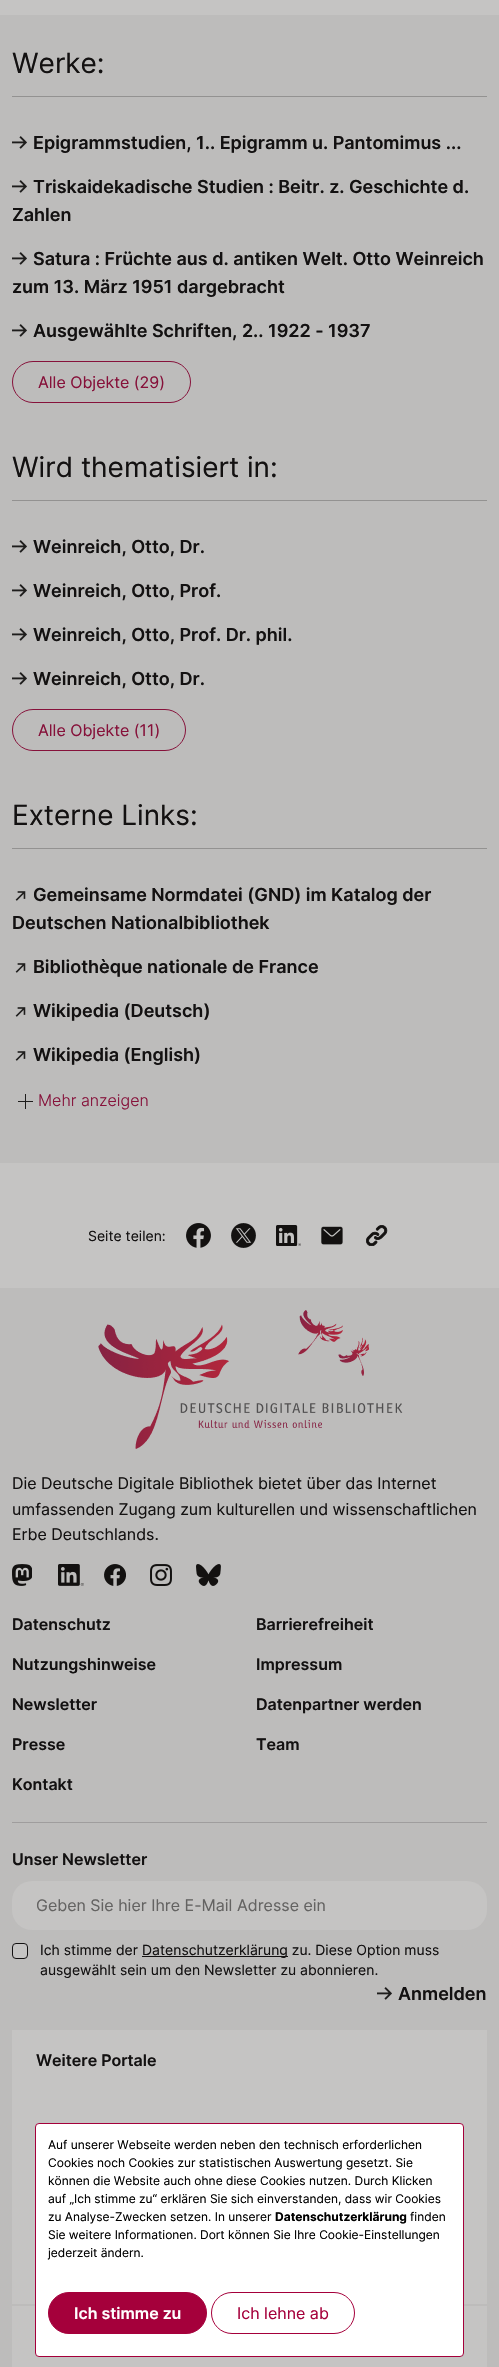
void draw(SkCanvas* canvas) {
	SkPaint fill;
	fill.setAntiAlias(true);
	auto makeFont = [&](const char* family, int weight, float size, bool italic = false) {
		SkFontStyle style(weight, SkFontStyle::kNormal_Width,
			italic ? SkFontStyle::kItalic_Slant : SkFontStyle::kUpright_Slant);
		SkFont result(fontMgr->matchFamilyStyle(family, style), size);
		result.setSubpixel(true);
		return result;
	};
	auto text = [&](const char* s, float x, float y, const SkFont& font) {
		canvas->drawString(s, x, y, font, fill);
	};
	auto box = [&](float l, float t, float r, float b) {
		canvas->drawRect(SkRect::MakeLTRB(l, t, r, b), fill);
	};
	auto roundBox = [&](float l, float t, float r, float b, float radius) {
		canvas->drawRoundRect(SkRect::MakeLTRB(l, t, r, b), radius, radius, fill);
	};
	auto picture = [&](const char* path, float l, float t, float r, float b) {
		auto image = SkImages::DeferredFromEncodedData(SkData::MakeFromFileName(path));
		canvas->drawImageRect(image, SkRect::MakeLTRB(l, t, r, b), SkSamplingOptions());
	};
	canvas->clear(0xFFC5C4C3);
	fill.setColor(0xFFBDBCBB);
	box(0, 15, 499, 1163);
	fill.setColor(0xFF939291);
	box(12, 96, 487, 97);
	picture("image0.png", 12, 136, 27, 149);
	picture("image0.png", 12, 180, 27, 193);
	picture("image0.png", 12, 252, 27, 265);
	picture("image0.png", 12, 324, 27, 337);
	fill.setStyle(SkPaint::kStroke_Style);
	fill.setStrokeWidth(1);
	fill.setColor(0xFF86113A);
	canvas->drawRoundRect(SkRect::MakeLTRB(12.5f, 361.5f, 190.5f, 402.5f), 20.5f, 20.5f, fill);
	fill.setStyle(SkPaint::kFill_Style);
	fill.setColor(0xFF939291);
	box(12, 500, 487, 501);
	picture("image0.png", 12, 540, 27, 553);
	picture("image0.png", 12, 584, 27, 597);
	picture("image0.png", 12, 628, 27, 641);
	picture("image0.png", 12, 672, 27, 685);
	fill.setStyle(SkPaint::kStroke_Style);
	fill.setColor(0xFF86113A);
	canvas->drawRoundRect(SkRect::MakeLTRB(12.5f, 709.5f, 185.5f, 750.5f), 20.5f, 20.5f, fill);
	fill.setStyle(SkPaint::kFill_Style);
	fill.setColor(0xFF939291);
	box(12, 848, 487, 849);
	picture("image1.png", 15, 891, 26, 901);
	picture("image1.png", 15, 963, 26, 973);
	picture("image1.png", 15, 1007, 26, 1017);
	picture("image1.png", 15, 1051, 26, 1061);
	fill.setColor(0xFF1E1D1C);
	box(25, 1094, 26, 1109);
	box(18, 1101, 33, 1102);
	picture("image2.png", 186, 1223, 211, 1248);
	picture("image3.png", 231, 1223, 256, 1248);
	picture("image4.png", 276, 1225, 301, 1246);
	picture("image5.png", 321, 1226, 343, 1245);
	picture("image6.png", 366, 1225, 388, 1246);
	fill.setColor(0xFFBDBCBB);
	box(0, 1288, 499, 2367);
	picture("image7.png", 98, 1310, 403, 1449);
	picture("image8.png", 12, 1564, 32, 1586);
	picture("image9.png", 58, 1564, 84, 1586);
	picture("image10.png", 104, 1564, 126, 1586);
	picture("image11.png", 150, 1564, 172, 1586);
	picture("image12.png", 196, 1564, 221, 1586);
	fill.setColor(0xFF9F9D9D);
	box(12, 1822, 487, 1823);
	fill.setColor(0xFFC5C4C3);
	roundBox(12, 1881, 487, 1930, 20);
	canvas->drawRoundRect(SkRect::MakeLTRB(12.5f, 1943.5f, 27.5f, 1958.5f), 3.5f, 3.5f, fill);
	fill.setStyle(SkPaint::kStroke_Style);
	fill.setColor(0xFF131111);
	canvas->drawRoundRect(SkRect::MakeLTRB(12.5f, 1943.5f, 27.5f, 1958.5f), 3.5f, 3.5f, fill);
	fill.setStyle(SkPaint::kFill_Style);
	box(142, 1956, 288, 1957);
	picture("image0.png", 377, 1987, 392, 2000);
	fill.setColor(0xFFC5C4C3);
	box(12, 2030, 487, 2304);
	box(12, 2306, 487, 2367);
	fill.setColor(0xFFFFFFFF);
	canvas->drawRoundRect(SkRect::MakeLTRB(35.5f, 2123.5f, 463.5f, 2356.5f), 3.5f, 3.5f, fill);
	fill.setStyle(SkPaint::kStroke_Style);
	fill.setColor(0xFFA5003B);
	canvas->drawRoundRect(SkRect::MakeLTRB(35.5f, 2123.5f, 463.5f, 2356.5f), 3.5f, 3.5f, fill);
	fill.setStyle(SkPaint::kFill_Style);
	canvas->drawRoundRect(SkRect::MakeLTRB(48.5f, 2292.5f, 206.5f, 2333.5f), 20.5f, 20.5f, fill);
	fill.setStyle(SkPaint::kStroke_Style);
	canvas->drawRoundRect(SkRect::MakeLTRB(48.5f, 2292.5f, 206.5f, 2333.5f), 20.5f, 20.5f, fill);
	canvas->drawRoundRect(SkRect::MakeLTRB(211.5f, 2292.5f, 354.5f, 2333.5f), 20.5f, 20.5f, fill);
	auto font1 = makeFont("Inter", 400, 28);
	fill.setStyle(SkPaint::kFill_Style);
	fill.setColor(0xFF131111);
	text("Werke:", 12, 73, font1);
	auto font2 = makeFont("Inter", 600, 18);
	text("Epigrammstudien, 1.. Epigramm u. Pantomimus ...", 33, 149, font2);
	text("Triskaidekadische Studien : Beitr. z. Geschichte d.", 33, 193, font2);
	text("Zahlen", 12, 221, font2);
	text("Satura : Früchte aus d. antiken Welt. Otto Weinreich", 33, 265, font2);
	text("zum 13. März 1951 dargebracht", 12, 293, font2);
	text("Ausgewählte Schriften, 2.. 1922 - 1937", 33, 337, font2);
	auto font3 = makeFont("Inter", 400, 16);
	fill.setColor(0xFF86113A);
	text("Alle Objekte (29)", 38, 388, font3);
	fill.setColor(0xFF131111);
	text("Wird thematisiert in:", 12, 477, font1);
	text("Weinreich, Otto, Dr.", 33, 553, font2);
	text("Weinreich, Otto, Prof.", 33, 597, font2);
	text("Weinreich, Otto, Prof. Dr. phil.", 33, 641, font2);
	text("Weinreich, Otto, Dr.", 33, 685, font2);
	fill.setColor(0xFF86113A);
	text("Alle Objekte (11)", 38, 736, font3);
	fill.setColor(0xFF131111);
	text("Externe Links:", 12, 825, font1);
	text("Gemeinsame Normdatei (GND) im Katalog der", 33, 901, font2);
	text("Deutschen Nationalbibliothek", 12, 929, font2);
	text("Bibliothèque nationale de France", 33, 973, font2);
	text("Wikipedia (Deutsch)", 33, 1017, font2);
	text("Wikipedia (English)", 33, 1061, font2);
	auto font4 = makeFont("Inter", 300, 16);
	fill.setColor(0xFF86113A);
	text("Mehr anzeigen", 38, 1106, font4);
	auto font5 = makeFont("Inter", 400, 14);
	fill.setColor(0xFF131111);
	text("Seite teilen:", 88, 1241, font5);
	text("Die Deutsche Digitale Bibliothek bietet über das Internet", 12, 1489, font3);
	text("umfassenden Zugang zum kulturellen und wissenschaftlichen", 12, 1515, font3);
	text("Erbe Deutschlands.", 12, 1540, font3);
	auto font6 = makeFont("Inter", 600, 16);
	text("Datenschutz", 12, 1630, font6);
	text("Barrierefreiheit", 256, 1630, font6);
	text("Nutzungshinweise", 12, 1670, font6);
	text("Impressum", 256, 1670, font6);
	text("Newsletter", 12, 1710, font6);
	text("Datenpartner werden", 256, 1710, font6);
	text("Presse", 12, 1750, font6);
	text("Team", 256, 1750, font6);
	text("Kontakt", 12, 1790, font6);
	text("Unser Newsletter", 12, 1865, font6);
	fill.setColor(0xFF646362);
	text("Geben Sie hier Ihre E-Mail Adresse ein", 36, 1911, font3);
	fill.setColor(0xFF131111);
	text("Ich stimme der", 40, 1955, font5);
	text("Datenschutzerklärung zu. Diese Option muss", 142, 1955, font5);
	text("ausgewählt sein um den Newsletter zu abonnieren.", 40, 1975, font5);
	text("Anmelden", 398, 2000, font2);
	text("Weitere Portale", 36, 2066, font6);
	auto font7 = makeFont("Inter", 400, 12);
	fill.setColor(0xFF000000);
	text("Auf unserer Webseite werden neben den technisch erforderlichen", 48, 2149, font7);
	text("Cookies noch Cookies zur statistischen Auswertung gesetzt. Sie", 48, 2167, font7);
	text("können die Website auch ohne diese Cookies nutzen. Durch Klicken", 48, 2185, font7);
	text("auf „Ich stimme zu“ erklären Sie sich einverstanden, dass wir Cookies", 48, 2203, font7);
	text("zu Analyse-Zwecken setzen. In unserer", 48, 2221, font7);
	auto font8 = makeFont("Inter", 700, 12);
	text("Datenschutzerklärung", 275, 2221, font8);
	text("finden", 410, 2221, font7);
	text("Sie weitere Informationen. Dort können Sie Ihre Cookie-Einstellungen", 48, 2239, font7);
	text("jederzeit ändern.", 48, 2257, font7);
	fill.setColor(0xFFFFFFFF);
	text("Ich stimme zu", 74, 2319, font6);
	fill.setColor(0xFFA5003B);
	text("Ich lehne ab", 237, 2319, font3);
}
